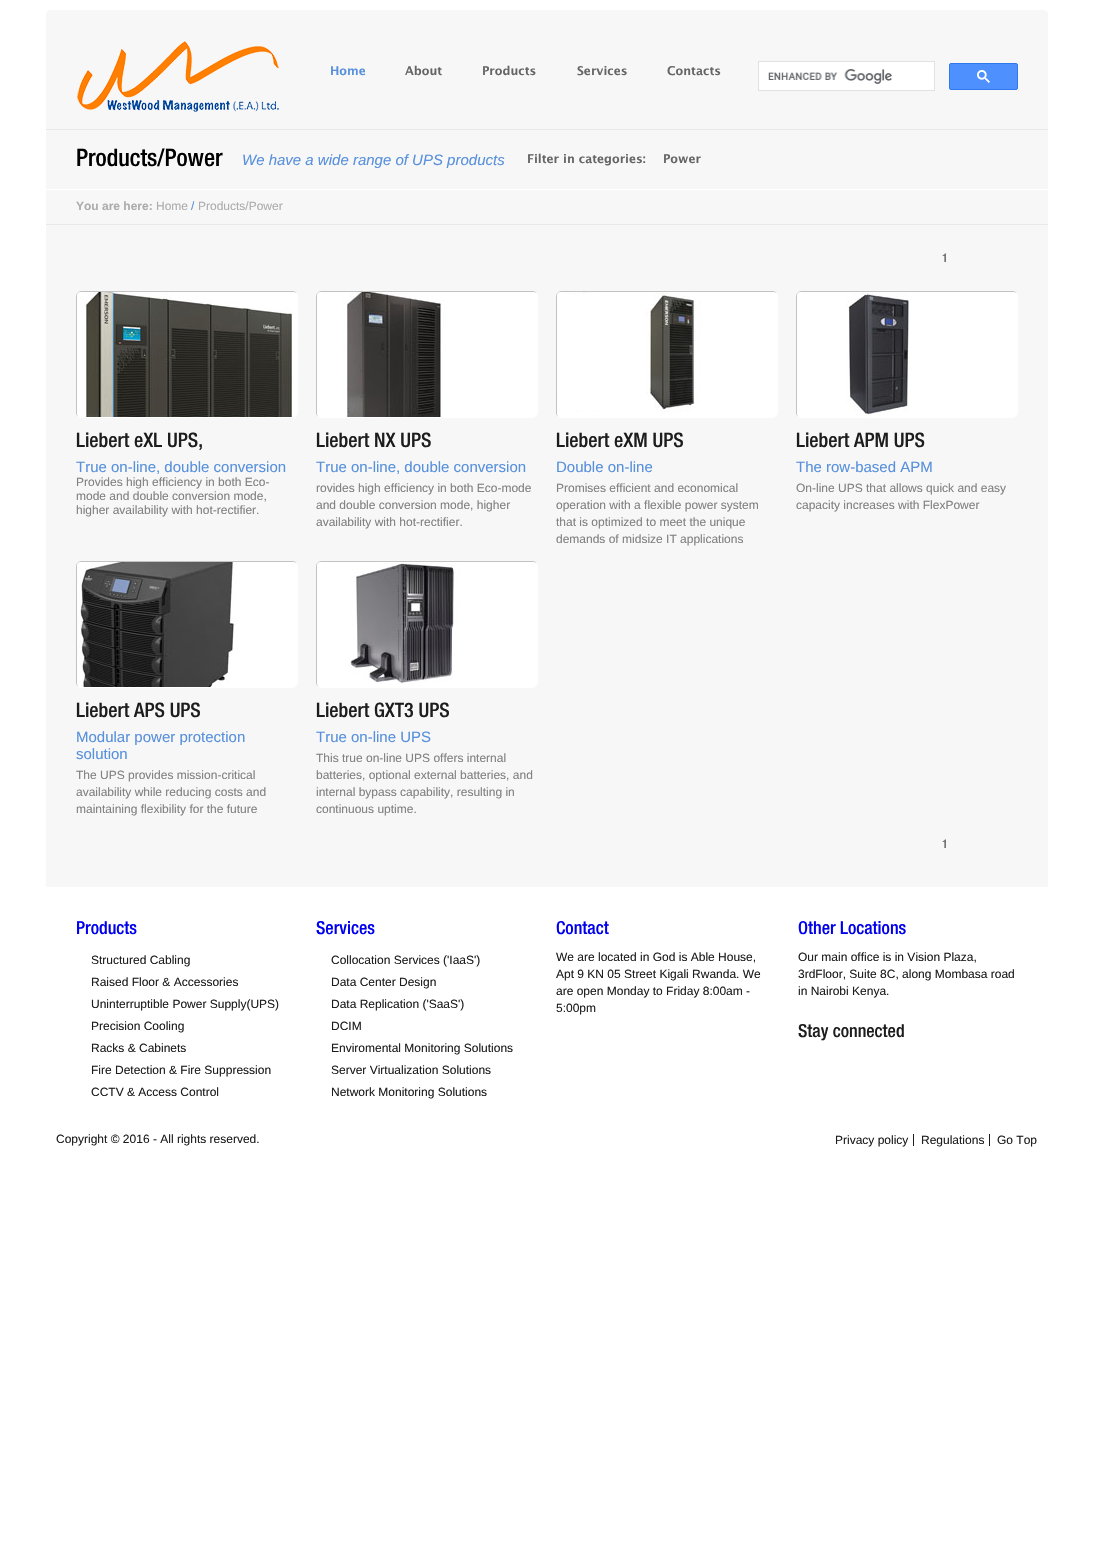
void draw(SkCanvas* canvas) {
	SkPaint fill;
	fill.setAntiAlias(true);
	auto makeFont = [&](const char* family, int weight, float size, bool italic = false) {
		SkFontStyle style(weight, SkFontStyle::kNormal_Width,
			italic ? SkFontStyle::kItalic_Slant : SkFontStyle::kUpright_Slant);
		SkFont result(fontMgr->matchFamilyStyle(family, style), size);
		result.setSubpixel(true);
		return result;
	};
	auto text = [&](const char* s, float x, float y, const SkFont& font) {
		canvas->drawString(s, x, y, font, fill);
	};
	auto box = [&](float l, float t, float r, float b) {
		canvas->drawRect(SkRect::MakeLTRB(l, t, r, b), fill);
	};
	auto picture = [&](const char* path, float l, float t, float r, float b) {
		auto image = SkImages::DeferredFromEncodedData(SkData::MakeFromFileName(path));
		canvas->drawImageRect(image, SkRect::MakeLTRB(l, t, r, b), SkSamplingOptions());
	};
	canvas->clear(0xFFFFFFFF);
	fill.setColor(0xFFF7F7F7);
	canvas->drawPath(SkPathBuilder().moveTo(51, 10).lineTo(1043, 10).cubicTo(1046, 10, 1048, 12, 1048, 15).lineTo(1048, 887).lineTo(46, 887).lineTo(46, 15).cubicTo(46, 12, 48, 10, 51, 10).close().detach(), fill);
	picture("image0.png", 77, 41, 279, 112);
	fill.setColor(0xFFFFFFFF);
	canvas->drawRect(SkRect::MakeLTRB(758.5f, 61.5f, 934.5f, 90.5f), fill);
	fill.setStyle(SkPaint::kStroke_Style);
	fill.setStrokeWidth(1);
	fill.setColor(0xFFDFE1E5);
	canvas->drawRect(SkRect::MakeLTRB(758.5f, 61.5f, 934.5f, 90.5f), fill);
	picture("image1.png", 768, 69, 892, 84);
	fill.setStyle(SkPaint::kFill_Style);
	fill.setColor(0xFF4D90FE);
	canvas->drawRoundRect(SkRect::MakeLTRB(949.5f, 63.5f, 1017.5f, 89.5f), 1.5f, 1.5f, fill);
	fill.setStyle(SkPaint::kStroke_Style);
	fill.setColor(0xFF3079ED);
	canvas->drawRoundRect(SkRect::MakeLTRB(949.5f, 63.5f, 1017.5f, 89.5f), 1.5f, 1.5f, fill);
	picture("image2.png", 977, 70, 990, 83);
	fill.setStyle(SkPaint::kFill_Style);
	fill.setColor(0xFFE8E8E8);
	box(46, 129, 1048, 130);
	fill.setColor(0xFFFFFFFF);
	box(46, 189, 1048, 190);
	fill.setColor(0xFFE8E8E8);
	box(46, 224, 1048, 225);
	fill.setStyle(SkPaint::kStroke_Style);
	fill.setColor(0xFFFFFFFF);
	canvas->drawPath(SkPathBuilder().moveTo(296, 293).cubicTo(297, 293.5f, 297.5f, 295, 297.5f, 296).lineTo(297.5f, 413).cubicTo(297.5f, 414, 297, 415.5f, 296, 416).cubicTo(295.5f, 417, 294, 417.5f, 293, 417.5f).lineTo(81, 417.5f).cubicTo(80, 417.5f, 78.5f, 417, 78, 416).detach(), fill);
	fill.setColor(0xFFC2C2C2);
	canvas->drawPath(SkPathBuilder().moveTo(78, 416).cubicTo(77, 415.5f, 76.5f, 414, 76.5f, 413).lineTo(76.5f, 296).cubicTo(76.5f, 295, 77, 293.5f, 78, 293).cubicTo(78.5f, 292, 80, 291.5f, 81, 291.5f).lineTo(293, 291.5f).cubicTo(294, 291.5f, 295.5f, 292, 296, 293).detach(), fill);
	picture("image3.png", 77, 292, 297, 417);
	fill.setColor(0xFFFFFFFF);
	canvas->drawPath(SkPathBuilder().moveTo(536, 293).cubicTo(537, 293.5f, 537.5f, 295, 537.5f, 296).lineTo(537.5f, 413).cubicTo(537.5f, 414, 537, 415.5f, 536, 416).cubicTo(535.5f, 417, 534, 417.5f, 533, 417.5f).lineTo(321, 417.5f).cubicTo(320, 417.5f, 318.5f, 417, 318, 416).detach(), fill);
	fill.setColor(0xFFC2C2C2);
	canvas->drawPath(SkPathBuilder().moveTo(318, 416).cubicTo(317, 415.5f, 316.5f, 414, 316.5f, 413).lineTo(316.5f, 296).cubicTo(316.5f, 295, 317, 293.5f, 318, 293).cubicTo(318.5f, 292, 320, 291.5f, 321, 291.5f).lineTo(533, 291.5f).cubicTo(534, 291.5f, 535.5f, 292, 536, 293).detach(), fill);
	picture("image4.png", 317, 292, 537, 417);
	fill.setColor(0xFFFFFFFF);
	canvas->drawPath(SkPathBuilder().moveTo(776, 293).cubicTo(777, 293.5f, 777.5f, 295, 777.5f, 296).lineTo(777.5f, 413).cubicTo(777.5f, 414, 777, 415.5f, 776, 416).cubicTo(775.5f, 417, 774, 417.5f, 773, 417.5f).lineTo(561, 417.5f).cubicTo(560, 417.5f, 558.5f, 417, 558, 416).detach(), fill);
	fill.setColor(0xFFC2C2C2);
	canvas->drawPath(SkPathBuilder().moveTo(558, 416).cubicTo(557, 415.5f, 556.5f, 414, 556.5f, 413).lineTo(556.5f, 296).cubicTo(556.5f, 295, 557, 293.5f, 558, 293).cubicTo(558.5f, 292, 560, 291.5f, 561, 291.5f).lineTo(773, 291.5f).cubicTo(774, 291.5f, 775.5f, 292, 776, 293).detach(), fill);
	picture("image5.png", 557, 292, 777, 417);
	fill.setColor(0xFFFFFFFF);
	canvas->drawPath(SkPathBuilder().moveTo(1016, 293).cubicTo(1017, 293.5f, 1017.5f, 295, 1017.5f, 296).lineTo(1017.5f, 413).cubicTo(1017.5f, 414, 1017, 415.5f, 1016, 416).cubicTo(1015.5f, 417, 1014, 417.5f, 1013, 417.5f).lineTo(801, 417.5f).cubicTo(800, 417.5f, 798.5f, 417, 798, 416).detach(), fill);
	fill.setColor(0xFFC2C2C2);
	canvas->drawPath(SkPathBuilder().moveTo(798, 416).cubicTo(797, 415.5f, 796.5f, 414, 796.5f, 413).lineTo(796.5f, 296).cubicTo(796.5f, 295, 797, 293.5f, 798, 293).cubicTo(798.5f, 292, 800, 291.5f, 801, 291.5f).lineTo(1013, 291.5f).cubicTo(1014, 291.5f, 1015.5f, 292, 1016, 293).detach(), fill);
	picture("image6.png", 797, 292, 1017, 417);
	fill.setColor(0xFFFFFFFF);
	canvas->drawPath(SkPathBuilder().moveTo(296, 563).cubicTo(297, 563.5f, 297.5f, 565, 297.5f, 566).lineTo(297.5f, 683).cubicTo(297.5f, 684, 297, 685.5f, 296, 686).cubicTo(295.5f, 687, 294, 687.5f, 293, 687.5f).lineTo(81, 687.5f).cubicTo(80, 687.5f, 78.5f, 687, 78, 686).detach(), fill);
	fill.setColor(0xFFC2C2C2);
	canvas->drawPath(SkPathBuilder().moveTo(78, 686).cubicTo(77, 685.5f, 76.5f, 684, 76.5f, 683).lineTo(76.5f, 566).cubicTo(76.5f, 565, 77, 563.5f, 78, 563).cubicTo(78.5f, 562, 80, 561.5f, 81, 561.5f).lineTo(293, 561.5f).cubicTo(294, 561.5f, 295.5f, 562, 296, 563).detach(), fill);
	picture("image7.png", 77, 562, 297, 687);
	fill.setColor(0xFFFFFFFF);
	canvas->drawPath(SkPathBuilder().moveTo(536, 563).cubicTo(537, 563.5f, 537.5f, 565, 537.5f, 566).lineTo(537.5f, 683).cubicTo(537.5f, 684, 537, 685.5f, 536, 686).cubicTo(535.5f, 687, 534, 687.5f, 533, 687.5f).lineTo(321, 687.5f).cubicTo(320, 687.5f, 318.5f, 687, 318, 686).detach(), fill);
	fill.setColor(0xFFC2C2C2);
	canvas->drawPath(SkPathBuilder().moveTo(318, 686).cubicTo(317, 685.5f, 316.5f, 684, 316.5f, 683).lineTo(316.5f, 566).cubicTo(316.5f, 565, 317, 563.5f, 318, 563).cubicTo(318.5f, 562, 320, 561.5f, 321, 561.5f).lineTo(533, 561.5f).cubicTo(534, 561.5f, 535.5f, 562, 536, 563).detach(), fill);
	picture("image8.png", 317, 562, 537, 687);
	fill.setStyle(SkPaint::kFill_Style);
	fill.setColor(0xFF1D1D1D);
	box(913, 1134, 914, 1146);
	box(989, 1134, 990, 1146);
	auto font1 = makeFont("Lucida Grande", 700, 12);
	fill.setColor(0xFF5790DC);
	text("Home", 330, 75, font1);
	fill.setColor(0xFF656565);
	text("About", 405, 75, font1);
	text("Products", 482, 75, font1);
	text("Services", 577, 75, font1);
	text("Contacts", 667, 75, font1);
	auto font2 = makeFont("Helvetica Neue", 500, 24);
	fill.setColor(0xFF000000);
	text("Products/Power", 76, 166, font2);
	auto font3 = makeFont("Liberation Sans", 400, 15, true);
	fill.setColor(0xFF5790DC);
	text("We have a wide range of UPS products", 242, 165, font3);
	fill.setColor(0xFF656565);
	text("Filter in categories:", 527, 163, font1);
	text("Power", 663, 163, font1);
	auto font4 = makeFont("Liberation Sans", 700, 12);
	fill.setColor(0xFFACACAC);
	text("You are here:", 76, 210, font4);
	auto font5 = makeFont("Liberation Sans", 400, 12);
	text("Home", 156, 210, font5);
	fill.setColor(0xFF5790DC);
	text("/", 191, 210, font5);
	fill.setColor(0xFFACACAC);
	text("Products/Power", 198, 210, font5);
	auto font6 = makeFont("Helvetica Neue", 500, 12);
	fill.setColor(0xFF656565);
	text("1", 942, 262, font6);
	auto font7 = makeFont("Helvetica Neue", 500, 20);
	fill.setColor(0xFF1D1D1D);
	text("Liebert eXL UPS,", 76, 447, font7);
	auto font8 = makeFont("Liberation Sans", 400, 15);
	fill.setColor(0xFF5790DC);
	text("True on-line, double conversion", 76, 472, font8);
	fill.setColor(0xFF808080);
	text("Provides high efficiency in both Eco-", 76, 486, font5);
	text("mode and double conversion mode,", 76, 500, font5);
	text("higher availability with hot-rectifier.", 76, 514, font5);
	fill.setColor(0xFF1D1D1D);
	text("Liebert NX UPS", 316, 447, font7);
	fill.setColor(0xFF5790DC);
	text("True on-line, double conversion", 316, 472, font8);
	fill.setColor(0xFF808080);
	text("rovides high efficiency in both Eco-mode", 316, 492, font5);
	text("and double conversion mode, higher", 316, 509, font5);
	text("availability with hot-rectifier.", 316, 526, font5);
	fill.setColor(0xFF1D1D1D);
	text("Liebert eXM UPS", 556, 447, font7);
	fill.setColor(0xFF5790DC);
	text("Double on-line", 556, 472, font8);
	fill.setColor(0xFF808080);
	text("Promises efficient and economical", 556, 492, font5);
	text("operation with a flexible power system", 556, 509, font5);
	text("that is optimized to meet the unique", 556, 526, font5);
	text("demands of midsize IT applications", 556, 543, font5);
	fill.setColor(0xFF1D1D1D);
	text("Liebert APM UPS", 796, 447, font7);
	fill.setColor(0xFF5790DC);
	text("The row-based APM", 796, 472, font8);
	fill.setColor(0xFF808080);
	text("On-line UPS that allows quick and easy", 796, 492, font5);
	text("capacity increases with FlexPower", 796, 509, font5);
	fill.setColor(0xFF1D1D1D);
	text("Liebert APS UPS", 76, 717, font7);
	fill.setColor(0xFF5790DC);
	text("Modular power protection", 76, 742, font8);
	text("solution", 76, 759, font8);
	fill.setColor(0xFF808080);
	text("The UPS provides mission-critical", 76, 779, font5);
	text("availability while reducing costs and", 76, 796, font5);
	text("maintaining flexibility for the future", 76, 813, font5);
	fill.setColor(0xFF1D1D1D);
	text("Liebert GXT3 UPS", 316, 717, font7);
	fill.setColor(0xFF5790DC);
	text("True on-line UPS", 316, 742, font8);
	fill.setColor(0xFF808080);
	text("This true on-line UPS offers internal", 316, 762, font5);
	text("batteries, optional external batteries, and", 316, 779, font5);
	text("internal bypass capability, resulting in", 316, 796, font5);
	text("continuous uptime.", 316, 813, font5);
	fill.setColor(0xFF656565);
	text("1", 942, 848, font6);
	auto font9 = makeFont("Helvetica Neue", 500, 18);
	fill.setColor(0xFF0000EE);
	text("Products", 76, 934, font9);
	fill.setColor(0xFF1D1D1D);
	text("Structured Cabling", 91, 964, font5);
	text("Raised Floor & Accessories", 91, 986, font5);
	text("Uninterruptible Power Supply(UPS)", 91, 1008, font5);
	text("Precision Cooling", 91, 1030, font5);
	text("Racks & Cabinets", 91, 1052, font5);
	text("Fire Detection & Fire Suppression", 91, 1074, font5);
	text("CCTV & Access Control", 91, 1096, font5);
	fill.setColor(0xFF0000EE);
	text("Services", 316, 934, font9);
	fill.setColor(0xFF1D1D1D);
	text("Collocation Services ('IaaS')", 331, 964, font5);
	text("Data Center Design", 331, 986, font5);
	text("Data Replication ('SaaS')", 331, 1008, font5);
	text("DCIM", 331, 1030, font5);
	text("Enviromental Monitoring Solutions", 331, 1052, font5);
	text("Server Virtualization Solutions", 331, 1074, font5);
	text("Network Monitoring Solutions", 331, 1096, font5);
	fill.setColor(0xFF0000EE);
	text("Contact", 556, 934, font9);
	fill.setColor(0xFF1D1D1D);
	text("We are located in God is Able House,", 556, 961, font5);
	text("Apt 9 KN 05 Street Kigali Rwanda. We", 556, 978, font5);
	text("are open Monday to Friday 8:00am -", 556, 995, font5);
	text("5:00pm", 556, 1012, font5);
	fill.setColor(0xFF0000EE);
	text("Other Locations", 798, 934, font9);
	fill.setColor(0xFF1D1D1D);
	text("Our main office is in Vision Plaza,", 798, 961, font5);
	text("3rdFloor, Suite 8C, along Mombasa road", 798, 978, font5);
	text("in Nairobi Kenya.", 798, 995, font5);
	text("Stay connected", 798, 1037, font9);
	text("Copyright © 2016 - All rights reserved.", 56, 1143, font5);
	text("Privacy policy", 835, 1144, font5);
	text("Regulations", 921, 1144, font5);
	text("Go Top", 997, 1144, font5);
}
